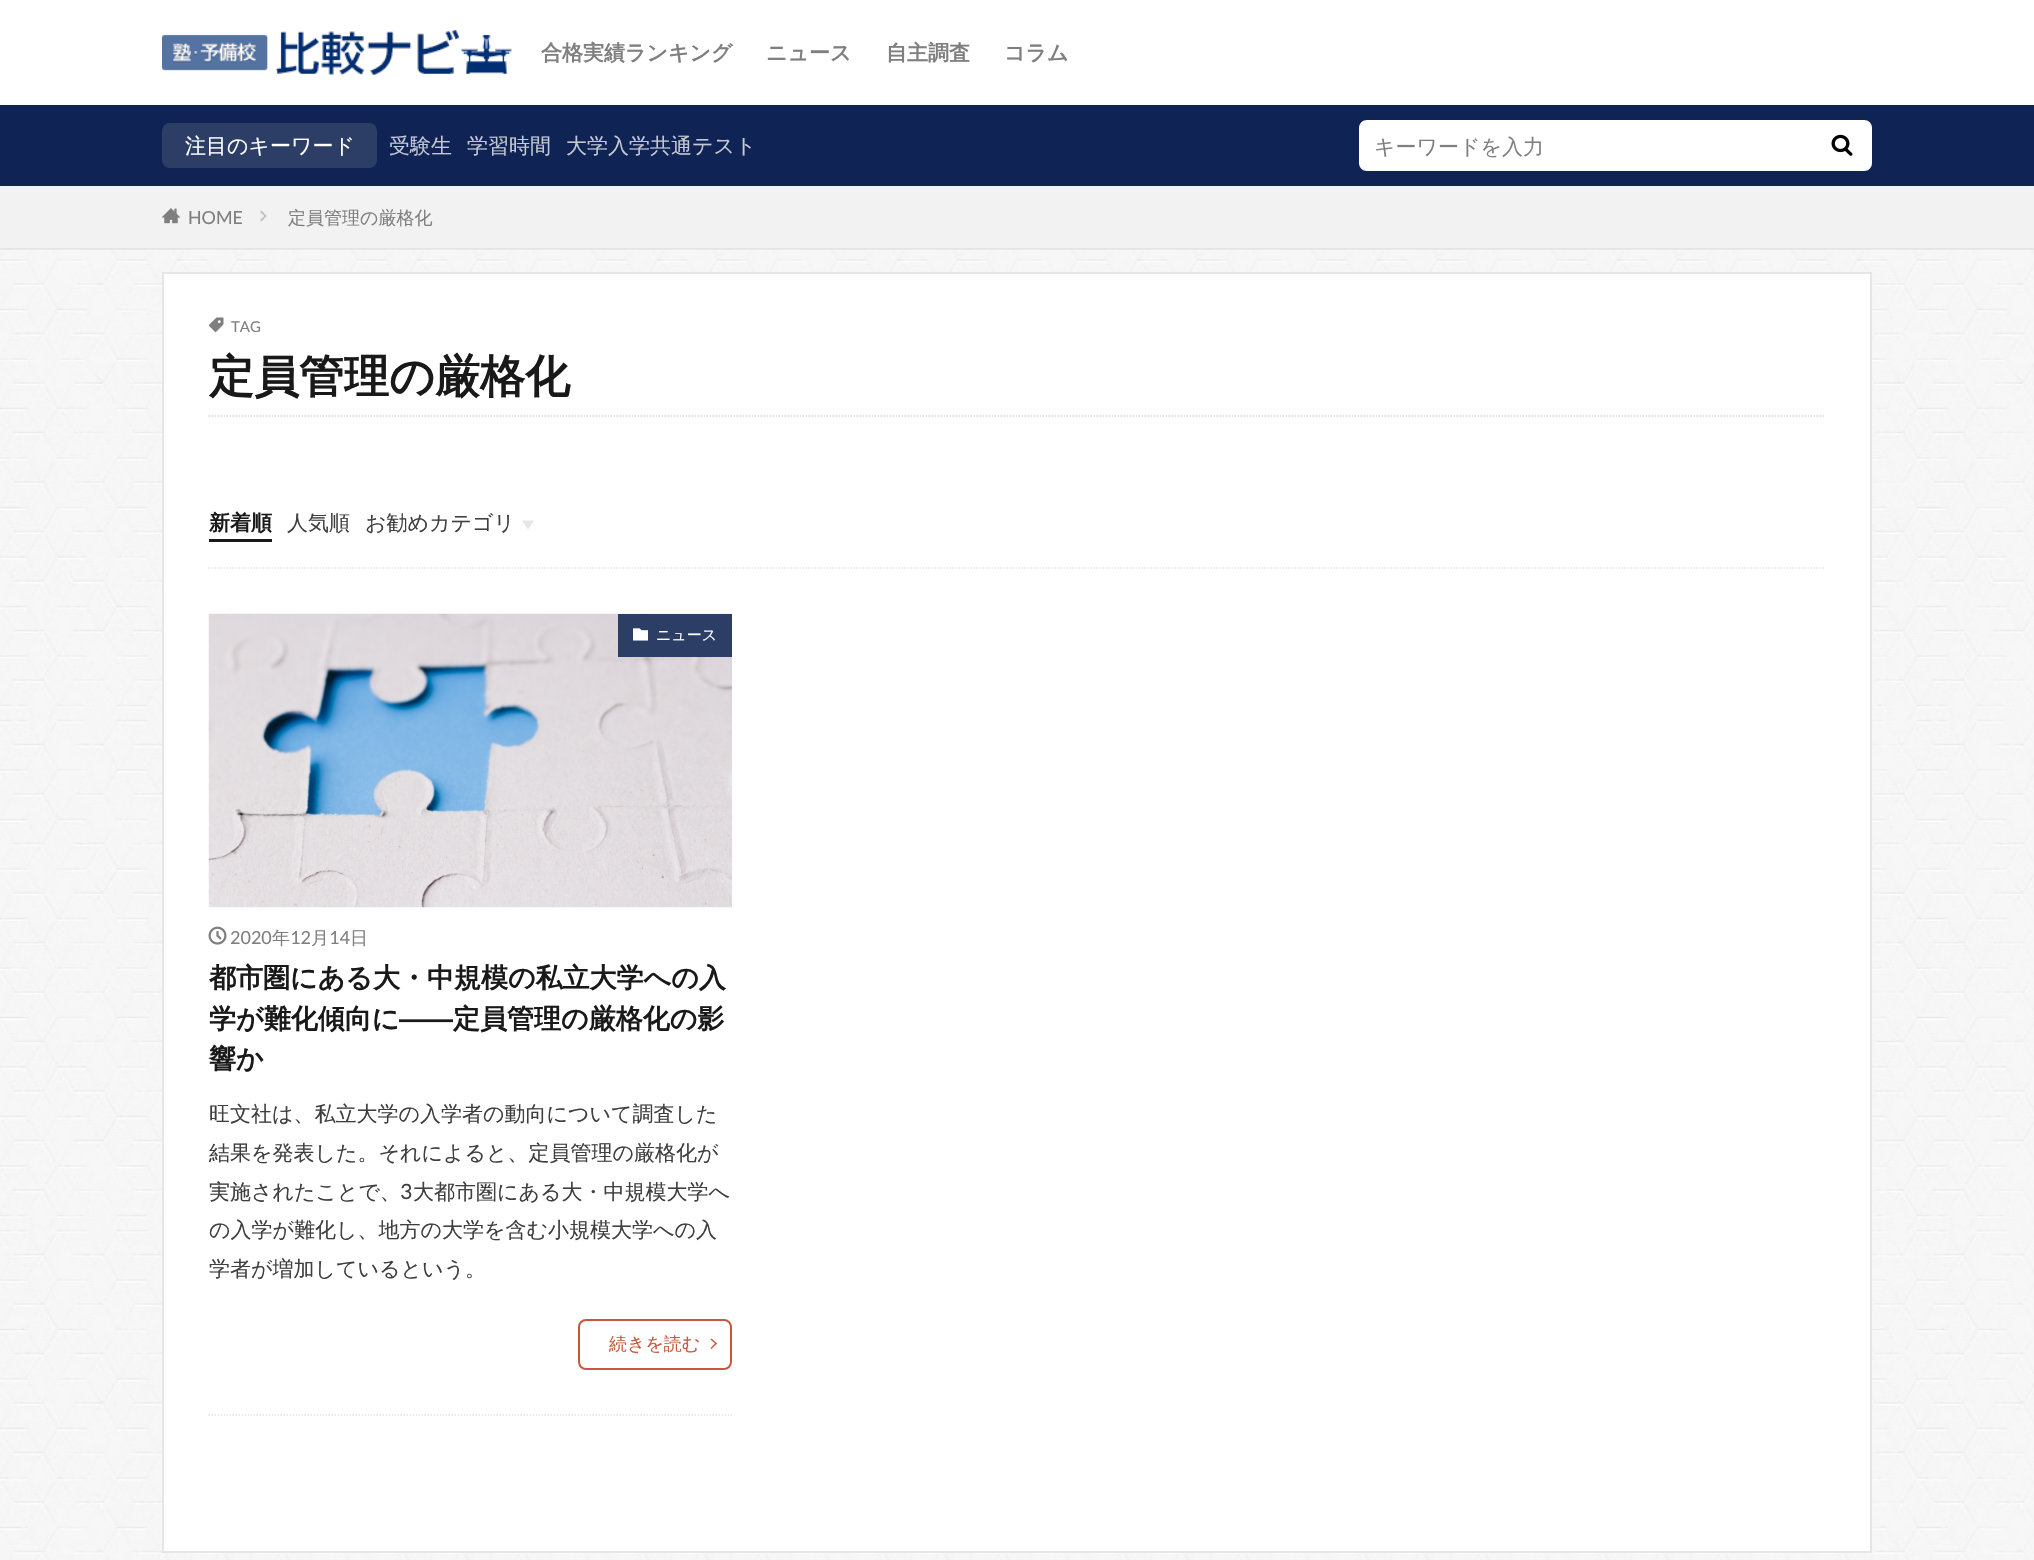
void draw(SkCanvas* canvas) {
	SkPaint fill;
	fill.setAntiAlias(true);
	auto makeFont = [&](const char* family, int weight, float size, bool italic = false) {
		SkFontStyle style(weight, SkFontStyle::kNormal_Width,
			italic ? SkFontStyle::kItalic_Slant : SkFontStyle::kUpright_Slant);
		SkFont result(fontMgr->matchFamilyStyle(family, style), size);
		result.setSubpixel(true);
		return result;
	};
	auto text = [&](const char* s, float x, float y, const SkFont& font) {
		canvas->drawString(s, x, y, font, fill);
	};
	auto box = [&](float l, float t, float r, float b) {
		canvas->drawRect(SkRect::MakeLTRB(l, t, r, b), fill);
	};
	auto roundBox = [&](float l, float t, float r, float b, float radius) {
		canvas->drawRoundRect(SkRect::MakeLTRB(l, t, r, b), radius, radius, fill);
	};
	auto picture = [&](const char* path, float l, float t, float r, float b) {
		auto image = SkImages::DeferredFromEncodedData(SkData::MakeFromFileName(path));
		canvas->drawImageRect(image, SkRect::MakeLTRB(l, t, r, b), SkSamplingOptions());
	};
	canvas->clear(0xFFFFFFFF);
	picture("image0.png", 0, 249, 2034, 1560);
	picture("image1.png", 162, 30, 512, 75);
	fill.setColor(0xFF0F2354);
	box(0, 105, 2034, 186);
	fill.setColor(0xFF2C3E66);
	roundBox(162, 123, 377, 168, 8);
	fill.setColor(0xFFFFFFFF);
	canvas->drawPath(SkPathBuilder().moveTo(1367, 120).lineTo(1812, 120).lineTo(1812, 171).lineTo(1367, 171).cubicTo(1362.5f, 171, 1359, 167.5f, 1359, 163).lineTo(1359, 128).cubicTo(1359, 123.5f, 1362.5f, 120, 1367, 120).close().detach(), fill);
	canvas->drawPath(SkPathBuilder().moveTo(1812, 120).lineTo(1864, 120).cubicTo(1868.5f, 120, 1872, 123.5f, 1872, 128).lineTo(1872, 163).cubicTo(1872, 167.5f, 1868.5f, 171, 1864, 171).lineTo(1812, 171).close().detach(), fill);
	picture("image2.png", 1831, 134, 1853, 156);
	fill.setColor(0xFFF2F2F2);
	box(0, 186, 2034, 249);
	fill.setColor(0x0D000000);
	box(0, 248, 2034, 250);
	picture("image3.png", 162, 208, 180, 224);
	fill.setColor(0xFFBFBFBF);
	canvas->drawPath(SkPathBuilder().moveTo(261.5f, 210.5f).lineTo(266.5f, 216).lineTo(265.5f, 217).lineTo(260, 212).close().detach(), fill);
	canvas->drawPath(SkPathBuilder().moveTo(265.5f, 215).lineTo(266.5f, 216).lineTo(261.5f, 221.5f).lineTo(260, 220).close().detach(), fill);
	fill.setColor(0xFFFFFFFF);
	canvas->drawRect(SkRect::MakeLTRB(163, 273, 1871, 1552), fill);
	fill.setStyle(SkPaint::kStroke_Style);
	fill.setStrokeWidth(2);
	fill.setColor(0xFFE6E6E6);
	canvas->drawRect(SkRect::MakeLTRB(163, 273, 1871, 1552), fill);
	picture("image4.png", 208, 317, 224, 333);
	fill.setStrokeWidth(1.5f);
	fill.setColor(0xFFD8D8D8);
	fill.setPathEffect(SkDashPathEffect::Make({{1.5f, 1.5f}}, 0));
	canvas->drawPath(SkPathBuilder().moveTo(208.5f, 416).lineTo(1825.5f, 416).detach(), fill);
	fill.setPathEffect(nullptr);
	fill.setColor(0xFFE6E6E6);
	fill.setPathEffect(SkDashPathEffect::Make({{1.5f, 1.5f}}, 0));
	canvas->drawPath(SkPathBuilder().moveTo(208.5f, 568).lineTo(1825.5f, 568).detach(), fill);
	fill.setPathEffect(nullptr);
	fill.setStyle(SkPaint::kFill_Style);
	fill.setColor(0xFF191919);
	box(209, 539, 272, 542);
	fill.setColor(0xFFE6E6E6);
	canvas->drawPath(SkPathBuilder().moveTo(522, 520.5f).lineTo(534, 520.5f).lineTo(528, 529.5f).close().detach(), fill);
	fill.setStyle(SkPaint::kStroke_Style);
	fill.setPathEffect(SkDashPathEffect::Make({{1.5f, 1.5f}}, 0));
	canvas->drawPath(SkPathBuilder().moveTo(208.5f, 1415).lineTo(732, 1415).detach(), fill);
	fill.setPathEffect(nullptr);
	picture("image5.png", 208, 613, 732, 908);
	fill.setStyle(SkPaint::kFill_Style);
	fill.setColor(0xFF2C3E66);
	box(618, 614, 732, 657);
	picture("image6.png", 633, 628, 648, 641);
	picture("image7.png", 208, 926, 227, 945);
	fill.setStyle(SkPaint::kStroke_Style);
	fill.setStrokeWidth(2);
	fill.setColor(0xFFC5593E);
	canvas->drawRoundRect(SkRect::MakeLTRB(579, 1320, 731, 1369), 7, 7, fill);
	fill.setStyle(SkPaint::kFill_Style);
	canvas->drawPath(SkPathBuilder().moveTo(711.5f, 1338.5f).lineTo(717, 1343.5f).lineTo(716, 1344.5f).lineTo(710.5f, 1339.5f).close().detach(), fill);
	canvas->drawPath(SkPathBuilder().moveTo(716, 1342.5f).lineTo(717, 1343.5f).lineTo(711.5f, 1349).lineTo(710.5f, 1348).close().detach(), fill);
	auto font1 = makeFont("WenQuanYi Zen Hei", 700, 21);
	fill.setColor(0xFF7F7F7F);
	text("合格実績ランキング", 541, 60, font1);
	text("ニュース", 766, 60, font1);
	text("自主調査", 886, 60, font1);
	text("コラム", 1004, 60, font1);
	auto font2 = makeFont("WenQuanYi Zen Hei", 500, 21);
	fill.setColor(0xFFFFFFFF);
	text("注目のキーワード", 185, 153, font2);
	fill.setColor(0xFFC3C8D4);
	text("受験生", 389, 153, font2);
	text("学習時間", 467, 153, font2);
	text("大学入学共通テスト", 566, 153, font2);
	fill.setColor(0xFF7F7F7F);
	text("キーワードを入力", 1374, 154, font2);
	auto font3 = makeFont("Lato", 400, 18);
	text("HOME", 188, 224, font3);
	auto font4 = makeFont("WenQuanYi Zen Hei", 500, 18);
	text("定員管理の厳格化", 288, 224, font4);
	auto font5 = makeFont("Lato", 400, 15);
	text("TAG", 231, 332, font5);
	auto font6 = makeFont("WenQuanYi Zen Hei", 700, 45);
	fill.setColor(0xFF191919);
	text("定員管理の厳格化", 209, 392, font6);
	text("新着順", 209, 530, font1);
	fill.setColor(0xFF3F3F3F);
	text("人気順", 287, 530, font2);
	text("お勧めカテゴリ", 365, 530, font2);
	auto font7 = makeFont("WenQuanYi Zen Hei", 500, 15);
	fill.setColor(0xFFFFFFFF);
	text("ニュース", 656, 640, font7);
	fill.setColor(0xFF7F7F7F);
	text("2020", 230, 944, font3);
	text("年", 272, 944, font4);
	text("12", 290, 944, font3);
	text("月", 311, 944, font4);
	text("14", 329, 944, font3);
	text("日", 350, 944, font4);
	auto font8 = makeFont("WenQuanYi Zen Hei", 700, 27);
	fill.setColor(0xFF191919);
	text("都市圏にある大・中規模の私立大学への入", 209, 987, font8);
	text("学が難化傾向に", 209, 1028, font8);
	auto font9 = makeFont("Liberation Sans", 700, 27);
	text("――", 399, 1028, font9);
	text("定員管理の厳格化の影", 453, 1028, font8);
	text("響か", 209, 1068, font8);
	fill.setColor(0xFF3F3F3F);
	text("旺文社は、私立大学の入学者の動向について調査した", 209, 1121, font2);
	text("結果を発表した。それによると、定員管理の厳格化が", 209, 1160, font2);
	text("実施されたことで、", 209, 1199, font2);
	auto font10 = makeFont("Lato", 400, 21);
	text("3", 400, 1199, font10);
	text("大都市圏にある大・中規模大学へ", 413, 1199, font2);
	text("の入学が難化し、地方の大学を含む小規模大学への入", 209, 1237, font2);
	text("学者が増加しているという。", 209, 1276, font2);
	fill.setColor(0xFFC5593E);
	text("続きを読む", 609, 1350, font4);
}
